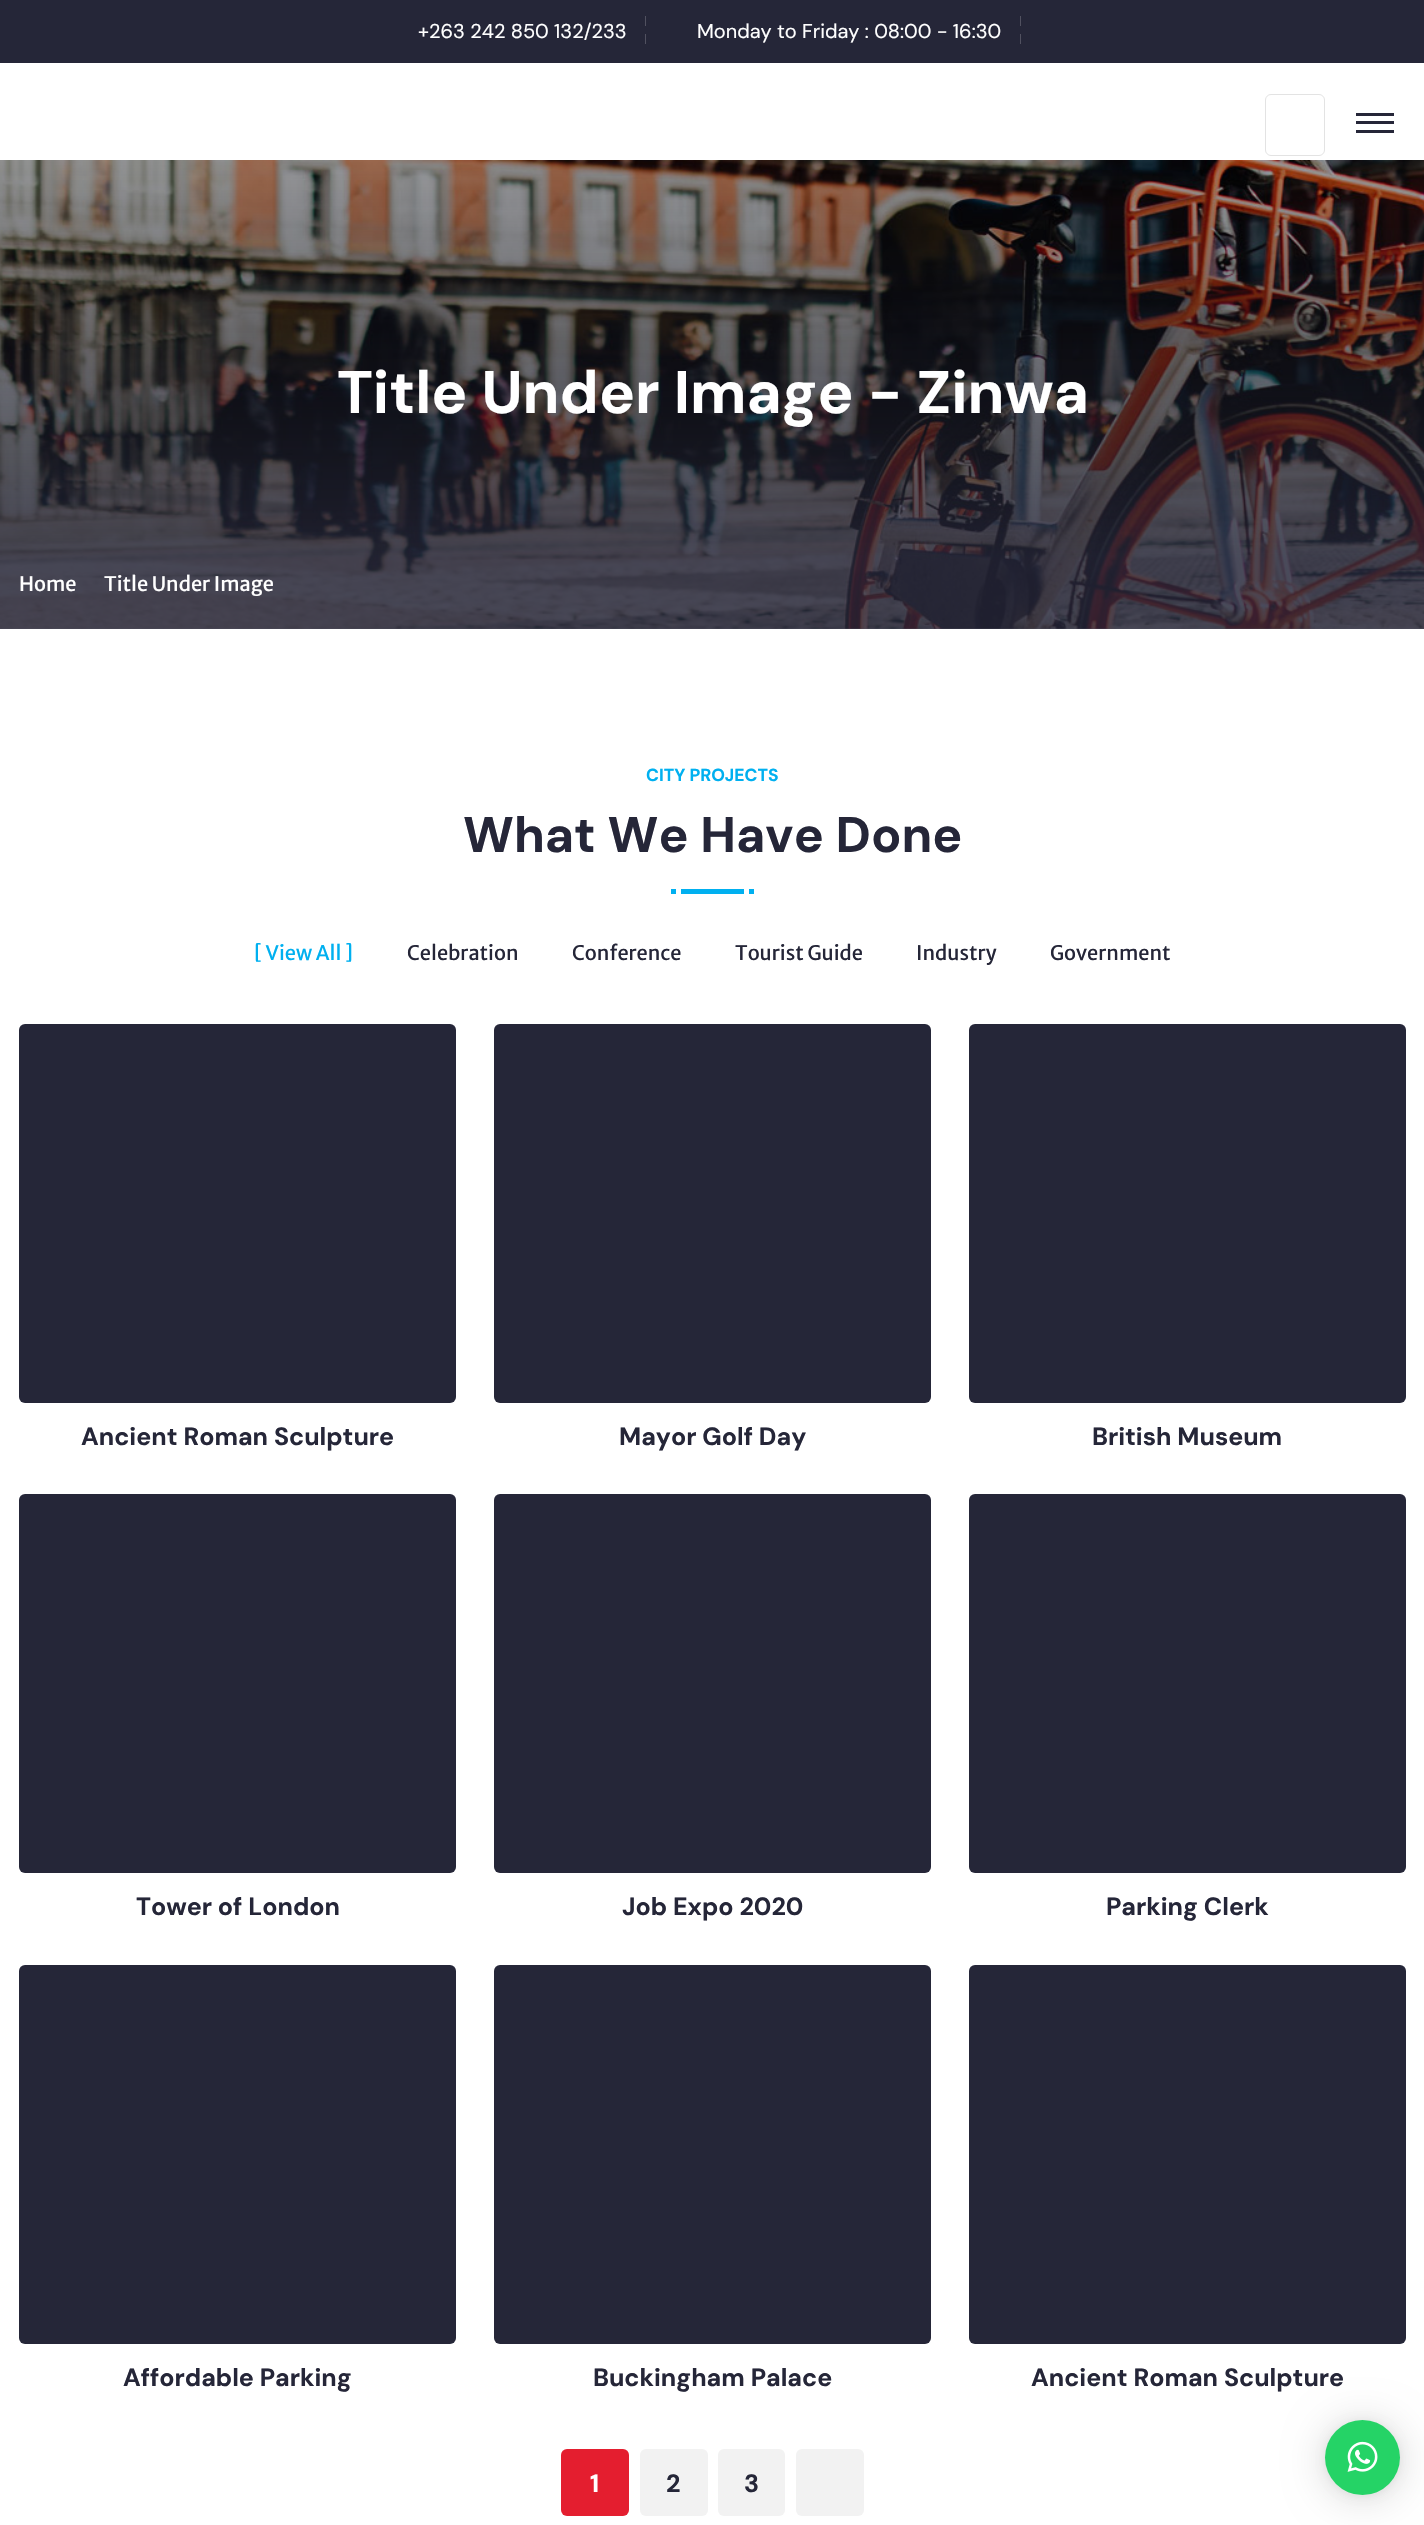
void draw(SkCanvas* canvas) {
	SkPaint fill;
	fill.setAntiAlias(true);
	auto makeFont = [&](const char* family, int weight, float size, bool italic = false) {
		SkFontStyle style(weight, SkFontStyle::kNormal_Width,
			italic ? SkFontStyle::kItalic_Slant : SkFontStyle::kUpright_Slant);
		SkFont result(fontMgr->matchFamilyStyle(family, style), size);
		result.setSubpixel(true);
		return result;
	};
	auto text = [&](const char* s, float x, float y, const SkFont& font) {
		canvas->drawString(s, x, y, font, fill);
	};
	auto box = [&](float l, float t, float r, float b) {
		canvas->drawRect(SkRect::MakeLTRB(l, t, r, b), fill);
	};
	auto roundBox = [&](float l, float t, float r, float b, float radius) {
		canvas->drawRoundRect(SkRect::MakeLTRB(l, t, r, b), radius, radius, fill);
	};
	auto picture = [&](const char* path, float l, float t, float r, float b) {
		auto image = SkImages::DeferredFromEncodedData(SkData::MakeFromFileName(path));
		canvas->drawImageRect(image, SkRect::MakeLTRB(l, t, r, b), SkSamplingOptions());
	};
	canvas->clear(0xFFFFFFFF);
	fill.setColor(0xFF252638);
	box(0, 0, 1424, 63);
	fill.setColor(0xFF515160);
	box(645, 16, 646, 26);
	box(645, 34, 646, 44);
	box(1020, 16, 1021, 26);
	box(1020, 34, 1021, 44);
	fill.setStyle(SkPaint::kStroke_Style);
	fill.setStrokeWidth(1);
	fill.setColor(0xFFE3E3E3);
	canvas->drawRoundRect(SkRect::MakeLTRB(1265.5f, 94.5f, 1324.5f, 155.5f), 5.5f, 5.5f, fill);
	fill.setStyle(SkPaint::kFill_Style);
	fill.setColor(0xFF252638);
	box(1356, 113, 1394, 116);
	box(1356, 121, 1394, 124);
	box(1356, 130, 1394, 133);
	picture("image0.png", 0, 160, 1424, 629);
	{
		const SkColor colors[] = {0xCC252638, 0x4D000000};
		const float stops[] = {0.15f, 1};
		const SkPoint ends[] = {{713, 629}, {713, 160}};
		fill.setShader(SkGradientShader::MakeLinear(ends, colors, stops, 2, SkTileMode::kClamp));
		fill.setAlpha(255);
	}
	box(0, 160, 1424, 629);
	fill.setShader(nullptr);
	fill.setColor(0xFF00B0F0);
	box(681, 889, 744, 894);
	box(671, 889, 676, 894);
	box(749, 889, 754, 894);
	fill.setColor(0xFF252638);
	roundBox(19, 1024, 456, 1403, 6);
	roundBox(494, 1024, 931, 1403, 6);
	roundBox(969, 1024, 1406, 1403, 6);
	roundBox(19, 1494, 456, 1873, 6);
	roundBox(494, 1494, 931, 1873, 6);
	roundBox(969, 1494, 1406, 1873, 6);
	roundBox(19, 1965, 456, 2344, 6);
	roundBox(494, 1965, 931, 2344, 6);
	roundBox(969, 1965, 1406, 2344, 6);
	fill.setColor(0xFFE41E2F);
	roundBox(561, 2449, 629, 2516, 6);
	fill.setColor(0xFFF2F2F2);
	roundBox(640, 2449, 708, 2516, 6);
	roundBox(718, 2449, 785, 2516, 6);
	roundBox(796, 2449, 864, 2516, 6);
	fill.setColor(0x29000000);
	fill.setMaskFilter(SkMaskFilter::MakeBlur(kNormal_SkBlurStyle, 20));
	canvas->drawRoundRect(SkRect::MakeLTRB(1325, 2423, 1400, 2498), 37.5f, 37.5f, fill);
	fill.setMaskFilter(nullptr);
	fill.setColor(0x0F000000);
	fill.setMaskFilter(SkMaskFilter::MakeBlur(kNormal_SkBlurStyle, 4));
	canvas->drawRoundRect(SkRect::MakeLTRB(1325, 2421, 1400, 2496), 37.5f, 37.5f, fill);
	fill.setMaskFilter(nullptr);
	fill.setColor(0xFF25D366);
	canvas->drawCircle(1362.5f, 2457.5f, 37.5f, fill);
	picture("image1.png", 1347, 2441, 1378, 2472);
	auto font1 = makeFont("DM Sans", 400, 20);
	fill.setColor(0xFFFFFFFF);
	text("+263 242 850 132/233", 418, 38, font1);
	text("Monday to Friday : 08:00 - 16:30", 697, 38, font1);
	auto font2 = makeFont("DM Sans", 700, 60);
	text("Title Under Image - Zinwa", 337, 413, font2);
	auto font3 = makeFont("Merriweather Sans", 400, 20);
	text("Home", 19, 591, font3);
	text("Title Under Image", 104, 591, font3);
	auto font4 = makeFont("DM Sans", 700, 17.5f);
	fill.setColor(0xFF00B0F0);
	text("CITY PROJECTS", 646, 781, font4);
	auto font5 = makeFont("DM Sans", 700, 50);
	fill.setColor(0xFF252638);
	text("What We Have Done", 463, 852, font5);
	fill.setColor(0xFF00B0F0);
	text("[ View All ]", 254, 960, font3);
	fill.setColor(0xFF252638);
	text("Celebration", 407, 960, font3);
	text("Conference", 572, 960, font3);
	text("Tourist Guide", 735, 960, font3);
	text("Industry", 916, 960, font3);
	text("Government", 1050, 960, font3);
	auto font6 = makeFont("DM Sans", 700, 25);
	text("Ancient Roman Sculpture", 81, 1445, font6);
	text("Mayor Golf Day", 619, 1445, font6);
	text("British Museum", 1092, 1445, font6);
	text("Tower of London", 136, 1915, font6);
	text("Job Expo 2020", 622, 1915, font6);
	text("Parking Clerk", 1106, 1915, font6);
	text("Affordable Parking", 123, 2386, font6);
	text("Buckingham Palace", 593, 2386, font6);
	text("Ancient Roman Sculpture", 1031, 2386, font6);
	fill.setColor(0xFFFFFFFF);
	text("1", 590, 2492, font6);
	fill.setColor(0xFF252638);
	text("2", 666, 2492, font6);
	text("3", 744, 2492, font6);
}
